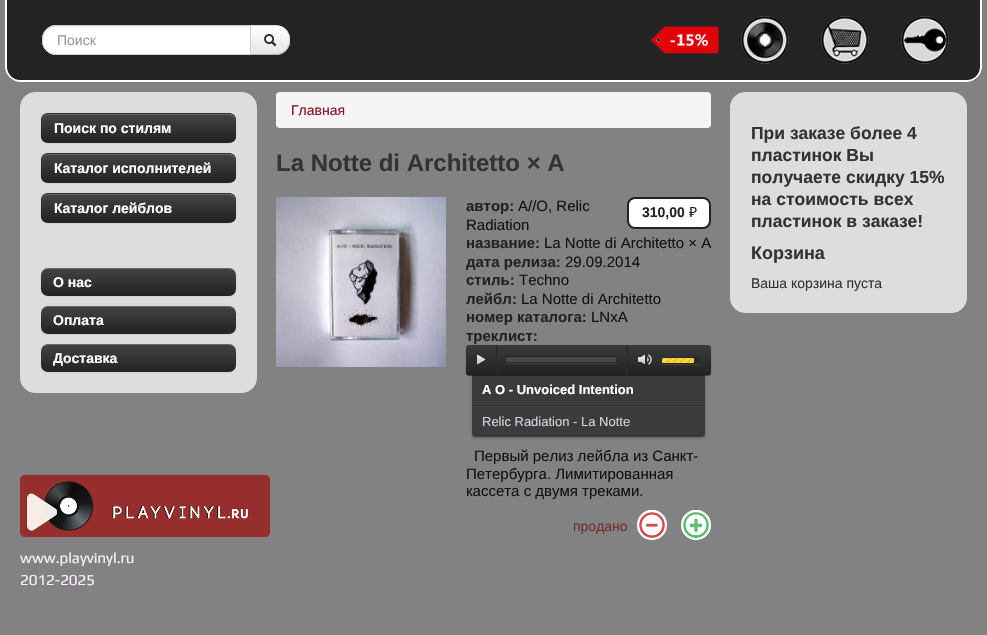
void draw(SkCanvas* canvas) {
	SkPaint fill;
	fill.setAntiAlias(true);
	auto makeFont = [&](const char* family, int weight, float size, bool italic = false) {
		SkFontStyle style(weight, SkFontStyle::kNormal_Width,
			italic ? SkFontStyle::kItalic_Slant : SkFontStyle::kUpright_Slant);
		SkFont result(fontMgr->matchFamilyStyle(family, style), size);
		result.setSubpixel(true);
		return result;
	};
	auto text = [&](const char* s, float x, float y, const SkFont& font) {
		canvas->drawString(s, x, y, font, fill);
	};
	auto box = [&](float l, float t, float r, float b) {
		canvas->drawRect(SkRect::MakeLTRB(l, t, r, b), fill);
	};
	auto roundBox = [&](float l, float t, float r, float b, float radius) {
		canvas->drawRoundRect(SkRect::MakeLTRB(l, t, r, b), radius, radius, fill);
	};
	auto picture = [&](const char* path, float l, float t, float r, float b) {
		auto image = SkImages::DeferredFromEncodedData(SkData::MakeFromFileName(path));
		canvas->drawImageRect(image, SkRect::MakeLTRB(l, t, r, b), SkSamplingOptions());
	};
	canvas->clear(0xFF828282);
	fill.setColor(0xFF232323);
	canvas->drawPath(SkPathBuilder().moveTo(5, 0).lineTo(982, 0).lineTo(982, 67).cubicTo(982, 75.5f, 975.5f, 82, 967, 82).lineTo(20, 82).cubicTo(11.5f, 82, 5, 75.5f, 5, 67).close().detach(), fill);
	fill.setColor(0xFFFFFFFF);
	canvas->drawPath(SkPathBuilder(SkPathFillType::kEvenOdd).moveTo(5, 0).lineTo(982, 0).lineTo(982, 67).cubicTo(982, 75, 975, 82, 967, 82).lineTo(20, 82).cubicTo(12, 82, 5, 75, 5, 67).close().moveTo(7, 0).lineTo(980, 0).lineTo(980, 67).cubicTo(980, 74, 974, 80, 967, 80).lineTo(20, 80).cubicTo(13, 80, 7, 74, 7, 67).close().detach(), fill);
	fill.setColor(0xFFF5F5F5);
	canvas->drawPath(SkPathBuilder().moveTo(250, 25).lineTo(276, 25).cubicTo(283.5f, 25, 290, 31.5f, 290, 39).lineTo(290, 41).cubicTo(290, 48.5f, 283.5f, 55, 276, 55).lineTo(250, 55).close().detach(), fill);
	canvas->save();
	canvas->clipPath(SkPathBuilder().moveTo(250, 25).lineTo(276, 25).cubicTo(283.5f, 25, 290, 31.5f, 290, 39).lineTo(290, 41).cubicTo(290, 48.5f, 283.5f, 55, 276, 55).lineTo(250, 55).close().detach(), true);
	{
		const SkColor colors[] = {0xFFFFFFFF, 0xFFE6E6E6};
		const float stops[] = {0, 1};
		const SkPoint ends[] = {{270, 26}, {270, 54}};
		fill.setShader(SkGradientShader::MakeLinear(ends, colors, stops, 2, SkTileMode::kClamp));
		fill.setAlpha(255);
	}
	box(251, 26, 290, 54);
	canvas->restore();
	fill.setShader(nullptr);
	fill.setColor(0x1A000000);
	canvas->drawPath(SkPathBuilder().moveTo(250, 25).lineTo(251, 26).lineTo(276, 26).cubicTo(279.5f, 26, 283, 27.5f, 285, 30).lineTo(286, 29).cubicTo(283.5f, 26.5f, 280, 25, 276, 25).close().detach(), fill);
	canvas->drawPath(SkPathBuilder().moveTo(290, 41).cubicTo(290, 36.5f, 289.5f, 32.5f, 286, 29).lineTo(285, 30).cubicTo(290.5f, 35, 290.5f, 45, 285, 50).lineTo(286, 51).cubicTo(288.5f, 48.5f, 290, 45, 290, 41).close().detach(), fill);
	fill.setColor(0xFFB3B3B3);
	canvas->drawPath(SkPathBuilder().moveTo(276, 55).cubicTo(280, 55, 283.5f, 53.5f, 286, 51).lineTo(285, 50).cubicTo(283, 52.5f, 279.5f, 54, 276, 54).lineTo(251, 54).lineTo(250, 55).close().detach(), fill);
	fill.setColor(0xFFFFFFFF);
	canvas->drawPath(SkPathBuilder().moveTo(56, 25).lineTo(251, 25).lineTo(251, 55).lineTo(56, 55).cubicTo(48.5f, 55, 42, 48.5f, 42, 41).lineTo(42, 39).cubicTo(42, 31.5f, 48.5f, 25, 56, 25).close().detach(), fill);
	fill.setColor(0xFFECECEC);
	canvas->drawPath(SkPathBuilder().moveTo(56, 27).lineTo(250, 27).lineTo(250, 26).lineTo(56, 26).cubicTo(49, 26, 43, 31, 43, 38).cubicTo(44, 32, 49, 27, 56, 27).close().detach(), fill);
	fill.setStyle(SkPaint::kStroke_Style);
	fill.setStrokeWidth(1);
	fill.setColor(0xFFCCCCCC);
	canvas->drawPath(SkPathBuilder().moveTo(56, 25.5f).lineTo(250.5f, 25.5f).lineTo(250.5f, 54.5f).lineTo(56, 54.5f).cubicTo(48.5f, 54.5f, 42.5f, 48.5f, 42.5f, 41).lineTo(42.5f, 39).cubicTo(42.5f, 31.5f, 48.5f, 25.5f, 56, 25.5f).close().detach(), fill);
	picture("image0.png", 264, 34, 277, 47);
	picture("image1.png", 651, 26, 720, 54);
	picture("image2.png", 741, 16, 789, 64);
	picture("image3.png", 821, 16, 869, 64);
	picture("image4.png", 901, 16, 949, 64);
	fill.setStyle(SkPaint::kFill_Style);
	fill.setColor(0xFFF5F5F5);
	roundBox(276, 92, 711, 128, 4);
	picture("image5.png", 276, 197, 446, 367);
	fill.setColor(0xFFFFFFFF);
	canvas->drawRoundRect(SkRect::MakeLTRB(628, 198, 710, 228), 7, 7, fill);
	fill.setStyle(SkPaint::kStroke_Style);
	fill.setStrokeWidth(2);
	fill.setColor(0xFF232323);
	canvas->drawRoundRect(SkRect::MakeLTRB(628, 198, 710, 228), 7, 7, fill);
	fill.setStyle(SkPaint::kFill_Style);
	fill.setColor(0x40000000);
	fill.setMaskFilter(SkMaskFilter::MakeBlur(kNormal_SkBlurStyle, 1.5f));
	canvas->drawRoundRect(SkRect::MakeLTRB(472, 376, 705, 438), 3, 3, fill);
	fill.setMaskFilter(nullptr);
	fill.setColor(0xFF3A3B3C);
	canvas->drawPath(SkPathBuilder().moveTo(472, 375).lineTo(705, 375).lineTo(705, 434).cubicTo(705, 435.5f, 703.5f, 437, 702, 437).lineTo(475, 437).cubicTo(473.5f, 437, 472, 435.5f, 472, 434).close().detach(), fill);
	fill.setColor(0x80000000);
	fill.setMaskFilter(SkMaskFilter::MakeBlur(kNormal_SkBlurStyle, 0.5f));
	canvas->drawRoundRect(SkRect::MakeLTRB(466, 346, 711, 376), 3, 3, fill);
	fill.setMaskFilter(nullptr);
	{
		const SkColor colors[] = {0xFF3A3B3C, 0xFF222222};
		const float stops[] = {0, 1};
		const SkPoint ends[] = {{589, 345}, {589, 375}};
		fill.setShader(SkGradientShader::MakeLinear(ends, colors, stops, 2, SkTileMode::kClamp));
		fill.setAlpha(255);
	}
	roundBox(466, 345, 711, 375, 3);
	picture("image6.png", 477, 354, 486, 365);
	fill.setShader(nullptr);
	fill.setColor(0xFF323334);
	box(497, 345, 498, 375);
	fill.setColor(0xFF242526);
	box(496, 345, 497, 375);
	picture("image7.png", 638, 354, 652, 365);
	fill.setColor(0x1AFFFFFF);
	fill.setMaskFilter(SkMaskFilter::MakeBlur(kNormal_SkBlurStyle, 0.5f));
	canvas->drawRoundRect(SkRect::MakeLTRB(661, 358, 701, 365), 1, 1, fill);
	fill.setMaskFilter(nullptr);
	fill.setColor(0xFF262929);
	roundBox(661, 357, 701, 364, 1);
	fill.setColor(0xFF242526);
	box(627, 345, 628, 375);
	fill.setColor(0xFF323334);
	box(626, 345, 627, 375);
	fill.setColor(0xFFFCC500);
	roundBox(662, 358, 694, 363, 1);
	{
		const SkColor colors[] = {0x4DFFFFFF, 0x00FFFFFF, 0x00FFFFFF, 0x4DFFFFFF, 0x4DFFFFFF, 0x00FFFFFF, 0x00000000};
		const float stops[] = {0.25f, 0.25f, 0.5f, 0.5f, 0.75f, 0.75f, 1};
		const SkPoint ends[] = {{669, 365}, {662, 358}};
		fill.setShader(SkGradientShader::MakeLinear(ends, colors, stops, 7, SkTileMode::kClamp));
		fill.setAlpha(255);
	}
	canvas->drawPath(SkPathBuilder().moveTo(663, 358).lineTo(669, 358).lineTo(669, 363).lineTo(663, 363).cubicTo(662.5f, 363, 662, 362.5f, 662, 362).lineTo(662, 359).cubicTo(662, 358.5f, 662.5f, 358, 663, 358).close().detach(), fill);
	{
		const SkColor colors[] = {0xFFFDD64D, 0xFFFCC500, 0xFFFCC500, 0xFFFDD64D, 0xFFFDD64D, 0xFFFCC500, 0xFFFCC500};
		const float stops[] = {0.25f, 0.25f, 0.5f, 0.5f, 0.75f, 0.75f, 1};
		const SkPoint ends[] = {{676, 365}, {669, 358}};
		fill.setShader(SkGradientShader::MakeLinear(ends, colors, stops, 7, SkTileMode::kClamp));
		fill.setAlpha(255);
	}
	box(669, 358, 676, 363);
	{
		const SkColor colors[] = {0xFFFDD64D, 0xFFFCC500, 0xFFFCC500, 0xFFFDD64D, 0xFFFDD64D, 0xFFFCC500, 0xFFFCC500};
		const float stops[] = {0.25f, 0.25f, 0.5f, 0.5f, 0.75f, 0.75f, 1};
		const SkPoint ends[] = {{683, 365}, {676, 358}};
		fill.setShader(SkGradientShader::MakeLinear(ends, colors, stops, 7, SkTileMode::kClamp));
		fill.setAlpha(255);
	}
	box(676, 358, 683, 363);
	{
		const SkColor colors[] = {0xFFFDD64D, 0xFFFCC500, 0xFFFCC500, 0xFFFDD64D, 0xFFFDD64D, 0xFFFCC500, 0xFFFCC500};
		const float stops[] = {0.25f, 0.25f, 0.5f, 0.5f, 0.75f, 0.75f, 1};
		const SkPoint ends[] = {{690, 365}, {683, 358}};
		fill.setShader(SkGradientShader::MakeLinear(ends, colors, stops, 7, SkTileMode::kClamp));
		fill.setAlpha(255);
	}
	box(683, 358, 690, 363);
	{
		const SkColor colors[] = {0x4DFFFFFF, 0x00FFFFFF, 0x00FFFFFF, 0x4DFFFFFF, 0x4DFFFFFF, 0x00FFFFFF, 0x00000000};
		const float stops[] = {0.25f, 0.25f, 0.5f, 0.5f, 0.75f, 0.75f, 1};
		const SkPoint ends[] = {{697, 365}, {690, 358}};
		fill.setShader(SkGradientShader::MakeLinear(ends, colors, stops, 7, SkTileMode::kClamp));
		fill.setAlpha(255);
	}
	canvas->drawPath(SkPathBuilder().moveTo(690, 358).lineTo(693, 358).cubicTo(693.5f, 358, 694, 358.5f, 694, 359).lineTo(694, 362).cubicTo(694, 362.5f, 693.5f, 363, 693, 363).lineTo(690, 363).close().detach(), fill);
	fill.setShader(nullptr);
	fill.setColor(0xFF464849);
	roundBox(506, 357, 616, 362, 1);
	canvas->save();
	canvas->clipRect(SkRect::MakeLTRB(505, 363, 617, 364));
	fill.setColor(0x1AFFFFFF);
	fill.setMaskFilter(SkMaskFilter::MakeBlur(kNormal_SkBlurStyle, 0.5f));
	canvas->drawRoundRect(SkRect::MakeLTRB(505, 357, 617, 364), 1, 1, fill);
	fill.setMaskFilter(nullptr);
	canvas->restore();
	fill.setColor(0xFF212424);
	box(506, 356, 617, 357);
	fill.setStyle(SkPaint::kStroke_Style);
	fill.setStrokeWidth(1);
	fill.setColor(0xFF262929);
	canvas->drawPath(SkPathBuilder().moveTo(616.5f, 356.5f).lineTo(616.5f, 362.5f).lineTo(561, 362.5f).lineTo(505.5f, 362.5f).lineTo(505.5f, 356.5f).detach(), fill);
	fill.setStyle(SkPaint::kFill_Style);
	fill.setColor(0xFF323334);
	box(472, 405, 705, 406);
	fill.setColor(0xFF3D3F40);
	box(472, 406, 705, 407);
	fill.setColor(0xFFFFFFFF);
	canvas->drawCircle(652, 525, 15, fill);
	picture("image8.png", 637, 512, 667, 538);
	fill.setColor(0x33FFFFFF);
	canvas->drawPath(SkPathBuilder().moveTo(652, 513).cubicTo(661.5f, 513, 665.5f, 521, 664.5f, 528.5f).cubicTo(665.5f, 525.5f, 665, 522.5f, 664, 520).cubicTo(657.5f, 505, 635.5f, 513, 639.5f, 528.5f).cubicTo(638.5f, 521, 642.5f, 513, 652, 513).close().detach(), fill);
	fill.setStyle(SkPaint::kStroke_Style);
	fill.setStrokeWidth(2);
	fill.setColor(0xFFFFFFFF);
	canvas->drawCircle(652, 525, 14, fill);
	fill.setStyle(SkPaint::kFill_Style);
	canvas->drawCircle(696, 525, 15, fill);
	picture("image9.png", 681, 512, 711, 538);
	fill.setColor(0x33FFFFFF);
	canvas->drawPath(SkPathBuilder().moveTo(696, 513).cubicTo(705.5f, 513, 709.5f, 521, 708.5f, 528.5f).cubicTo(709.5f, 525.5f, 709, 522.5f, 708, 520).cubicTo(701.5f, 505, 679.5f, 513, 683.5f, 528.5f).cubicTo(682.5f, 521, 686.5f, 513, 696, 513).close().detach(), fill);
	fill.setStyle(SkPaint::kStroke_Style);
	fill.setColor(0xFFFFFFFF);
	canvas->drawCircle(696, 525, 14, fill);
	fill.setStyle(SkPaint::kFill_Style);
	fill.setColor(0xFFDDDDDD);
	canvas->drawRoundRect(SkRect::MakeLTRB(20.5f, 92.5f, 256.5f, 392.5f), 14.5f, 14.5f, fill);
	fill.setStyle(SkPaint::kStroke_Style);
	fill.setStrokeWidth(1);
	canvas->drawRoundRect(SkRect::MakeLTRB(20.5f, 92.5f, 256.5f, 392.5f), 14.5f, 14.5f, fill);
	fill.setStyle(SkPaint::kFill_Style);
	fill.setColor(0x0D000000);
	fill.setMaskFilter(SkMaskFilter::MakeBlur(kNormal_SkBlurStyle, 1));
	canvas->drawRoundRect(SkRect::MakeLTRB(41, 114, 236, 144), 7, 7, fill);
	fill.setMaskFilter(nullptr);
	fill.setColor(0xFF363636);
	roundBox(41, 113, 236, 143, 7);
	canvas->save();
	canvas->clipPath(SkPathBuilder().moveTo(48, 113).lineTo(229, 113).cubicTo(233, 113, 236, 116, 236, 120).lineTo(236, 136).cubicTo(236, 140, 233, 143, 229, 143).lineTo(48, 143).cubicTo(44, 143, 41, 140, 41, 136).lineTo(41, 120).cubicTo(41, 116, 44, 113, 48, 113).close().detach(), true);
	{
		const SkColor colors[] = {0xFF444444, 0xFF222222};
		const float stops[] = {0, 1};
		const SkPoint ends[] = {{139, 114}, {139, 142}};
		fill.setShader(SkGradientShader::MakeLinear(ends, colors, stops, 2, SkTileMode::kClamp));
		fill.setAlpha(255);
	}
	box(41, 114, 236, 142);
	canvas->restore();
	fill.setShader(nullptr);
	fill.setColor(0xFF696969);
	canvas->drawPath(SkPathBuilder().moveTo(48, 115).lineTo(229, 115).cubicTo(232, 115, 235, 118, 235, 121).lineTo(235, 120).cubicTo(235, 117, 232, 114, 229, 114).lineTo(48, 114).cubicTo(45, 114, 42, 117, 42, 120).lineTo(42, 121).cubicTo(42, 118, 45, 115, 48, 115).close().detach(), fill);
	fill.setStyle(SkPaint::kStroke_Style);
	fill.setColor(0x40000000);
	canvas->drawPath(SkPathBuilder().moveTo(233.5f, 140.5f).cubicTo(232.5f, 142, 230.5f, 142.5f, 229, 142.5f).lineTo(48, 142.5f).cubicTo(46.5f, 142.5f, 44.5f, 142, 43.5f, 140.5f).detach(), fill);
	fill.setColor(0x1A000000);
	canvas->drawPath(SkPathBuilder().moveTo(43.5f, 140.5f).cubicTo(40, 137, 41.5f, 129.5f, 41.5f, 125.5f).cubicTo(41.5f, 120.5f, 41, 113.5f, 48, 113.5f).lineTo(229, 113.5f).cubicTo(236, 113.5f, 235.5f, 120.5f, 235.5f, 125.5f).cubicTo(235.5f, 129.5f, 237, 137, 233.5f, 140.5f).detach(), fill);
	fill.setStyle(SkPaint::kFill_Style);
	fill.setColor(0x0D000000);
	fill.setMaskFilter(SkMaskFilter::MakeBlur(kNormal_SkBlurStyle, 1));
	canvas->drawRoundRect(SkRect::MakeLTRB(41, 154, 236, 184), 7, 7, fill);
	fill.setMaskFilter(nullptr);
	fill.setColor(0xFF363636);
	roundBox(41, 153, 236, 183, 7);
	canvas->save();
	canvas->clipPath(SkPathBuilder().moveTo(48, 153).lineTo(229, 153).cubicTo(233, 153, 236, 156, 236, 160).lineTo(236, 176).cubicTo(236, 180, 233, 183, 229, 183).lineTo(48, 183).cubicTo(44, 183, 41, 180, 41, 176).lineTo(41, 160).cubicTo(41, 156, 44, 153, 48, 153).close().detach(), true);
	{
		const SkColor colors[] = {0xFF444444, 0xFF222222};
		const float stops[] = {0, 1};
		const SkPoint ends[] = {{139, 154}, {139, 182}};
		fill.setShader(SkGradientShader::MakeLinear(ends, colors, stops, 2, SkTileMode::kClamp));
		fill.setAlpha(255);
	}
	box(41, 154, 236, 182);
	canvas->restore();
	fill.setShader(nullptr);
	fill.setColor(0xFF696969);
	canvas->drawPath(SkPathBuilder().moveTo(48, 155).lineTo(229, 155).cubicTo(232, 155, 235, 158, 235, 161).lineTo(235, 160).cubicTo(235, 157, 232, 154, 229, 154).lineTo(48, 154).cubicTo(45, 154, 42, 157, 42, 160).lineTo(42, 161).cubicTo(42, 158, 45, 155, 48, 155).close().detach(), fill);
	fill.setStyle(SkPaint::kStroke_Style);
	fill.setColor(0x40000000);
	canvas->drawPath(SkPathBuilder().moveTo(233.5f, 180.5f).cubicTo(232.5f, 182, 230.5f, 182.5f, 229, 182.5f).lineTo(48, 182.5f).cubicTo(46.5f, 182.5f, 44.5f, 182, 43.5f, 180.5f).detach(), fill);
	fill.setColor(0x1A000000);
	canvas->drawPath(SkPathBuilder().moveTo(43.5f, 180.5f).cubicTo(40, 177, 41.5f, 169.5f, 41.5f, 165.5f).cubicTo(41.5f, 160.5f, 41, 153.5f, 48, 153.5f).lineTo(229, 153.5f).cubicTo(236, 153.5f, 235.5f, 160.5f, 235.5f, 165.5f).cubicTo(235.5f, 169.5f, 237, 177, 233.5f, 180.5f).detach(), fill);
	fill.setStyle(SkPaint::kFill_Style);
	fill.setColor(0x0D000000);
	fill.setMaskFilter(SkMaskFilter::MakeBlur(kNormal_SkBlurStyle, 1));
	canvas->drawRoundRect(SkRect::MakeLTRB(41, 194, 236, 224), 7, 7, fill);
	fill.setMaskFilter(nullptr);
	fill.setColor(0xFF363636);
	roundBox(41, 193, 236, 223, 7);
	canvas->save();
	canvas->clipPath(SkPathBuilder().moveTo(48, 193).lineTo(229, 193).cubicTo(233, 193, 236, 196, 236, 200).lineTo(236, 216).cubicTo(236, 220, 233, 223, 229, 223).lineTo(48, 223).cubicTo(44, 223, 41, 220, 41, 216).lineTo(41, 200).cubicTo(41, 196, 44, 193, 48, 193).close().detach(), true);
	{
		const SkColor colors[] = {0xFF444444, 0xFF222222};
		const float stops[] = {0, 1};
		const SkPoint ends[] = {{139, 194}, {139, 222}};
		fill.setShader(SkGradientShader::MakeLinear(ends, colors, stops, 2, SkTileMode::kClamp));
		fill.setAlpha(255);
	}
	box(41, 194, 236, 222);
	canvas->restore();
	fill.setShader(nullptr);
	fill.setColor(0xFF696969);
	canvas->drawPath(SkPathBuilder().moveTo(48, 195).lineTo(229, 195).cubicTo(232, 195, 235, 198, 235, 201).lineTo(235, 200).cubicTo(235, 197, 232, 194, 229, 194).lineTo(48, 194).cubicTo(45, 194, 42, 197, 42, 200).lineTo(42, 201).cubicTo(42, 198, 45, 195, 48, 195).close().detach(), fill);
	fill.setStyle(SkPaint::kStroke_Style);
	fill.setColor(0x40000000);
	canvas->drawPath(SkPathBuilder().moveTo(233.5f, 220.5f).cubicTo(232.5f, 222, 230.5f, 222.5f, 229, 222.5f).lineTo(48, 222.5f).cubicTo(46.5f, 222.5f, 44.5f, 222, 43.5f, 220.5f).detach(), fill);
	fill.setColor(0x1A000000);
	canvas->drawPath(SkPathBuilder().moveTo(43.5f, 220.5f).cubicTo(40, 217, 41.5f, 209.5f, 41.5f, 205.5f).cubicTo(41.5f, 200.5f, 41, 193.5f, 48, 193.5f).lineTo(229, 193.5f).cubicTo(236, 193.5f, 235.5f, 200.5f, 235.5f, 205.5f).cubicTo(235.5f, 209.5f, 237, 217, 233.5f, 220.5f).detach(), fill);
	fill.setStyle(SkPaint::kFill_Style);
	fill.setColor(0x0D000000);
	fill.setMaskFilter(SkMaskFilter::MakeBlur(kNormal_SkBlurStyle, 1));
	canvas->drawRoundRect(SkRect::MakeLTRB(41, 269, 236, 297), 7, 7, fill);
	fill.setMaskFilter(nullptr);
	{
		const SkColor colors[] = {0xFF444444, 0xFF222222};
		const float stops[] = {0, 1};
		const SkPoint ends[] = {{139, 268}, {139, 296}};
		fill.setShader(SkGradientShader::MakeLinear(ends, colors, stops, 2, SkTileMode::kClamp));
		fill.setAlpha(255);
	}
	roundBox(41, 268, 236, 296, 7);
	fill.setShader(nullptr);
	fill.setColor(0x33FFFFFF);
	canvas->drawPath(SkPathBuilder().moveTo(48, 269).lineTo(229, 269).cubicTo(233, 269, 236, 272, 236, 276).lineTo(236, 275).cubicTo(236, 271, 233, 268, 229, 268).lineTo(48, 268).cubicTo(44, 268, 41, 271, 41, 275).lineTo(41, 276).cubicTo(41, 272, 44, 269, 48, 269).close().detach(), fill);
	fill.setColor(0x0D000000);
	fill.setMaskFilter(SkMaskFilter::MakeBlur(kNormal_SkBlurStyle, 1));
	canvas->drawRoundRect(SkRect::MakeLTRB(41, 307, 236, 335), 7, 7, fill);
	fill.setMaskFilter(nullptr);
	{
		const SkColor colors[] = {0xFF444444, 0xFF222222};
		const float stops[] = {0, 1};
		const SkPoint ends[] = {{139, 306}, {139, 334}};
		fill.setShader(SkGradientShader::MakeLinear(ends, colors, stops, 2, SkTileMode::kClamp));
		fill.setAlpha(255);
	}
	roundBox(41, 306, 236, 334, 7);
	fill.setShader(nullptr);
	fill.setColor(0x33FFFFFF);
	canvas->drawPath(SkPathBuilder().moveTo(48, 307).lineTo(229, 307).cubicTo(233, 307, 236, 310, 236, 314).lineTo(236, 313).cubicTo(236, 309, 233, 306, 229, 306).lineTo(48, 306).cubicTo(44, 306, 41, 309, 41, 313).lineTo(41, 314).cubicTo(41, 310, 44, 307, 48, 307).close().detach(), fill);
	fill.setColor(0x0D000000);
	fill.setMaskFilter(SkMaskFilter::MakeBlur(kNormal_SkBlurStyle, 1));
	canvas->drawRoundRect(SkRect::MakeLTRB(41, 345, 236, 373), 7, 7, fill);
	fill.setMaskFilter(nullptr);
	{
		const SkColor colors[] = {0xFF444444, 0xFF222222};
		const float stops[] = {0, 1};
		const SkPoint ends[] = {{139, 344}, {139, 372}};
		fill.setShader(SkGradientShader::MakeLinear(ends, colors, stops, 2, SkTileMode::kClamp));
		fill.setAlpha(255);
	}
	roundBox(41, 344, 236, 372, 7);
	fill.setShader(nullptr);
	fill.setColor(0x33FFFFFF);
	canvas->drawPath(SkPathBuilder().moveTo(48, 345).lineTo(229, 345).cubicTo(233, 345, 236, 348, 236, 352).lineTo(236, 351).cubicTo(236, 347, 233, 344, 229, 344).lineTo(48, 344).cubicTo(44, 344, 41, 347, 41, 351).lineTo(41, 352).cubicTo(41, 348, 44, 345, 48, 345).close().detach(), fill);
	fill.setColor(0xFFDDDDDD);
	canvas->drawRoundRect(SkRect::MakeLTRB(730.5f, 92.5f, 966.5f, 312.5f), 14.5f, 14.5f, fill);
	fill.setStyle(SkPaint::kStroke_Style);
	canvas->drawRoundRect(SkRect::MakeLTRB(730.5f, 92.5f, 966.5f, 312.5f), 14.5f, 14.5f, fill);
	picture("image10.png", 20, 475, 270, 537);
	auto font1 = makeFont("Liberation Sans", 400, 14);
	fill.setStyle(SkPaint::kFill_Style);
	fill.setColor(0xFF999999);
	text("Поиск", 57, 45, font1);
	fill.setColor(0xFF881122);
	text("Главная", 291, 115, font1);
	auto font2 = makeFont("Liberation Sans", 700, 24);
	fill.setColor(0xFF333333);
	text("La Notte di Architetto × A", 276, 171, font2);
	auto font3 = makeFont("Liberation Sans", 700, 15);
	fill.setColor(0xFF232323);
	text("автор:", 466, 211, font3);
	auto font4 = makeFont("Liberation Sans", 400, 15);
	fill.setColor(0xFF121212);
	text("A//O, Relic", 518, 211, font4);
	auto font5 = makeFont("Liberation Sans", 700, 14);
	fill.setColor(0xFF232323);
	text("310,00", 642, 217, font5);
	auto font6 = makeFont("Noto Sans", 400, 14);
	text("₽", 689, 217, font6);
	fill.setColor(0xFF121212);
	text("Radiation", 466, 230, font4);
	fill.setColor(0xFF232323);
	text("название:", 466, 248, font3);
	fill.setColor(0xFF121212);
	text("La Notte di Architetto × A", 544, 248, font4);
	fill.setColor(0xFF232323);
	text("дата релиза:", 466, 267, font3);
	fill.setColor(0xFF121212);
	text("29.09.2014", 565, 267, font4);
	fill.setColor(0xFF232323);
	text("стиль:", 466, 285, font3);
	fill.setColor(0xFF121212);
	text("Techno", 519, 285, font4);
	fill.setColor(0xFF232323);
	text("лейбл:", 466, 304, font3);
	fill.setColor(0xFF121212);
	text("La Notte di Architetto", 521, 304, font4);
	fill.setColor(0xFF232323);
	text("номер каталога:", 466, 322, font3);
	fill.setColor(0xFF121212);
	text("LNxA", 591, 322, font4);
	fill.setColor(0xFF232323);
	text("треклист:", 466, 341, font3);
	auto font7 = makeFont("Liberation Sans", 700, 13);
	fill.setColor(0xFFFFFFFF);
	text("A O - Unvoiced Intention", 482, 394, font7);
	auto font8 = makeFont("Liberation Sans", 400, 13);
	fill.setColor(0xFFD2D6DB);
	text("Relic Radiation - La Notte", 482, 426, font8);
	fill.setColor(0xFF121212);
	text("Первый релиз лейбла из Санкт-", 474, 461, font4);
	text("Петербурга. Лимитированная", 466, 479, font4);
	text("кассета с двумя треками.", 466, 496, font4);
	fill.setColor(0xFF703030);
	text("продано", 573, 531, font1);
	fill.setColor(0xFFFFFFFF);
	text("Поиск по стилям", 54, 133, font5);
	text("Каталог исполнителей", 54, 173, font5);
	text("Каталог лейблов", 54, 213, font5);
	text("О нас", 53, 287, font5);
	text("Оплата", 53, 325, font5);
	text("Доставка", 53, 363, font5);
	auto font9 = makeFont("Liberation Sans", 700, 17.5f);
	fill.setColor(0xFF333333);
	text("При заказе более 4", 751, 139, font9);
	text("пластинок Вы", 751, 161, font9);
	text("получаете скидку 15%", 751, 183, font9);
	text("на стоимость всех", 751, 205, font9);
	text("пластинок в заказе!", 751, 227, font9);
	auto font10 = makeFont("Liberation Sans", 700, 18);
	text("Корзина", 751, 259, font10);
	text("Ваша корзина пуста", 751, 288, font1);
	auto font11 = makeFont("Play", 400, 15);
	fill.setColor(0xFFFFEEFF);
	text("www.playvinyl.ru", 20, 563, font11);
	text("2012-2025", 20, 585, font11);
}
